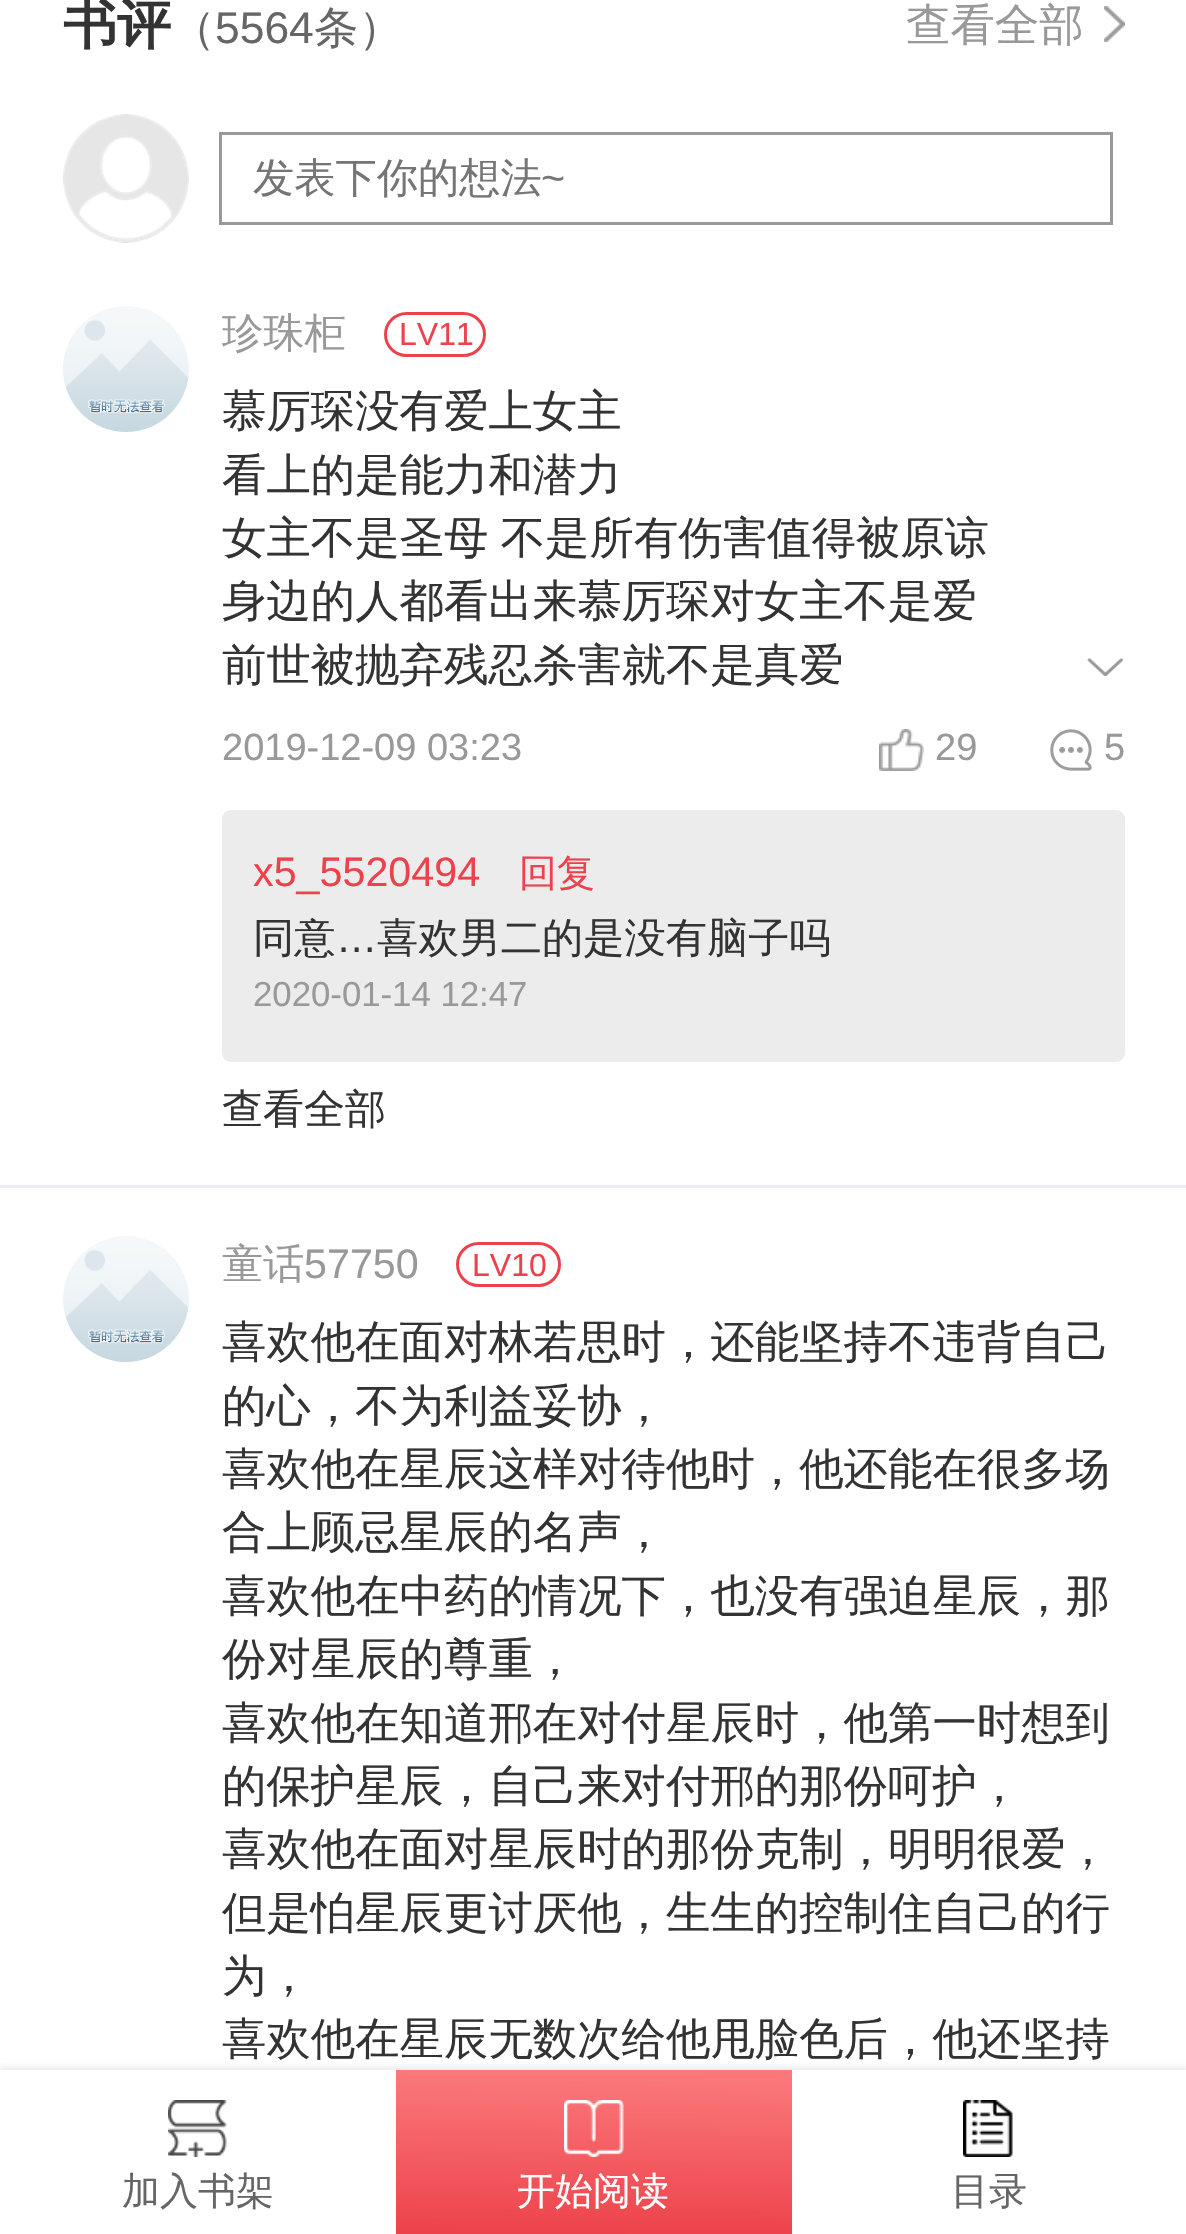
void draw(SkCanvas* canvas) {
	SkPaint fill;
	fill.setAntiAlias(true);
	auto makeFont = [&](const char* family, int weight, float size, bool italic = false) {
		SkFontStyle style(weight, SkFontStyle::kNormal_Width,
			italic ? SkFontStyle::kItalic_Slant : SkFontStyle::kUpright_Slant);
		SkFont result(fontMgr->matchFamilyStyle(family, style), size);
		result.setSubpixel(true);
		return result;
	};
	auto text = [&](const char* s, float x, float y, const SkFont& font) {
		canvas->drawString(s, x, y, font, fill);
	};
	auto spacedText = [&](const char* s, float x, float y, const SkFont& font, const SkPaint& ink, float letter, float word) {
		std::vector<SkGlyphID> glyphs(font.countText(s, strlen(s), SkTextEncoding::kUTF8));
		std::vector<float> xs(glyphs.size());
		font.textToGlyphs(s, strlen(s), SkTextEncoding::kUTF8, glyphs);
		font.getXPos(glyphs, xs, x);
		float extra = 0;
		for (size_t i = 0; i < glyphs.size(); i++) {
			xs[i] += extra;
			extra += letter + word * (glyphs[i] == font.unicharToGlyph(' '));
		}
		canvas->drawTextBlob(SkTextBlob::MakeFromPosHGlyphs(glyphs, xs, y, font), 0, 0, ink);
	};
	auto box = [&](float l, float t, float r, float b) {
		canvas->drawRect(SkRect::MakeLTRB(l, t, r, b), fill);
	};
	auto roundBox = [&](float l, float t, float r, float b, float radius) {
		canvas->drawRoundRect(SkRect::MakeLTRB(l, t, r, b), radius, radius, fill);
	};
	auto picture = [&](const char* path, float l, float t, float r, float b) {
		auto image = SkImages::DeferredFromEncodedData(SkData::MakeFromFileName(path));
		canvas->drawImageRect(image, SkRect::MakeLTRB(l, t, r, b), SkSamplingOptions());
	};
	canvas->clear(0xFFFFFFFF);
	picture("image0.png", 1104, 6, 1125, 42);
	picture("image1.png", 63, 114, 189, 243);
	fill.setStyle(SkPaint::kStroke_Style);
	fill.setStrokeWidth(3);
	fill.setColor(0xFF999999);
	canvas->drawRect(SkRect::MakeLTRB(220.5f, 133.5f, 1111.5f, 223.5f), fill);
	fill.setStyle(SkPaint::kFill_Style);
	fill.setColor(0xFFEBEBF2);
	box(0, 1185, 1186, 1188);
	picture("image2.png", 63, 306, 189, 432);
	fill.setStyle(SkPaint::kStroke_Style);
	fill.setColor(0xFFED424B);
	canvas->drawRoundRect(SkRect::MakeLTRB(385.5f, 313.5f, 484.5f, 355.5f), 21, 21, fill);
	picture("image3.png", 1087, 658, 1124, 677);
	picture("image4.png", 879, 729, 924, 771);
	picture("image5.png", 1050, 729, 1092, 771);
	fill.setStyle(SkPaint::kFill_Style);
	fill.setColor(0xFFECECEC);
	roundBox(222, 810, 1125, 1062, 9);
	picture("image6.png", 63, 1236, 189, 1362);
	fill.setStyle(SkPaint::kStroke_Style);
	fill.setColor(0xFFED424B);
	canvas->drawRoundRect(SkRect::MakeLTRB(457.5f, 1243.5f, 559.5f, 1285.5f), 21, 21, fill);
	fill.setStyle(SkPaint::kFill_Style);
	fill.setColor(0x14000000);
	fill.setMaskFilter(SkMaskFilter::MakeBlur(kNormal_SkBlurStyle, 3));
	canvas->drawRect(SkRect::MakeLTRB(0, 2067, 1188, 2232), fill);
	fill.setMaskFilter(nullptr);
	fill.setColor(0xFFFFFFFF);
	box(0, 2070, 1186, 2234);
	picture("image7.png", 168, 2100, 227, 2157);
	{
		const SkColor colors[] = {0xFFFA787A, 0xFFED424B};
		const float stops[] = {0.05f, 0.98f};
		const SkPoint ends[] = {{595, 2067}, {593, 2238}};
		fill.setShader(SkGradientShader::MakeLinear(ends, colors, stops, 2, SkTileMode::kClamp));
		fill.setAlpha(255);
	}
	box(396, 2070, 792, 2234);
	picture("image8.png", 564, 2100, 624, 2157);
	picture("image9.png", 963, 2100, 1013, 2157);
	auto font1 = makeFont("WenQuanYi Zen Hei", 700, 54);
	fill.setShader(nullptr);
	fill.setColor(0xFF333333);
	text("书评", 63, 43, font1);
	auto font2 = makeFont("WenQuanYi Zen Hei", 500, 44.4f);
	fill.setColor(0xFF666666);
	text("（", 171, 43, font2);
	auto font3 = makeFont("Liberation Sans", 400, 44.4f);
	text("5564", 215, 43, font3);
	text("条）", 314, 43, font2);
	fill.setColor(0xFF999999);
	text("查看全部", 906, 40, font2);
	auto font4 = makeFont("WenQuanYi Zen Hei", 500, 41.25f);
	fill.setColor(0xFF757575);
	text("发表下你的想法", 253, 192, font4);
	auto font5 = makeFont("Liberation Sans", 400, 41.25f);
	text("~", 541, 192, font5);
	fill.setColor(0xFF999999);
	text("珍珠柜", 222, 347, font4);
	auto font6 = makeFont("Liberation Sans", 400, 32);
	fill.setColor(0xFFED424B);
	text("LV11", 399, 345, font6);
	fill.setColor(0xFF333333);
	text("慕厉琛没有爱上女主", 222, 426, font2);
	text("看上的是能力和潜力", 222, 490, font2);
	spacedText("女主不是圣母 不是所有伤害值得被原谅", 222, 553, font2, fill, 0, -1);
	text("身边的人都看出来慕厉琛对女主不是爱", 222, 616, font2);
	text("前世被抛弃残忍杀害就不是真爱", 222, 680, font2);
	auto font7 = makeFont("Liberation Sans", 400, 38);
	fill.setColor(0xFF999999);
	text("2019-12-09 03:23", 222, 760, font7);
	text("29", 935, 760, font7);
	text("5", 1104, 760, font7);
	fill.setColor(0xFFED424B);
	text("x5_5520494", 253, 886, font5);
	auto font8 = makeFont("WenQuanYi Zen Hei", 500, 38);
	text("回复", 519, 886, font8);
	fill.setColor(0xFF333333);
	text("同意", 253, 952, font4);
	text("…", 336, 952, font5);
	text("喜欢男二的是没有脑子吗", 377, 952, font4);
	auto font9 = makeFont("Liberation Sans", 400, 34.75f);
	fill.setColor(0xFF999999);
	text("2020-01-14 12:47", 253, 1006, font9);
	auto font10 = makeFont("WenQuanYi Zen Hei", 500, 41);
	fill.setColor(0xFF333333);
	text("查看全部", 222, 1123, font10);
	fill.setColor(0xFF999999);
	text("童话", 222, 1278, font4);
	text("57750", 304, 1278, font5);
	fill.setColor(0xFFED424B);
	text("LV10", 472, 1276, font6);
	fill.setColor(0xFF333333);
	text("喜欢他在面对林若思时，还能坚持不违背自己", 222, 1357, font2);
	text("的心，不为利益妥协，", 222, 1421, font2);
	text("喜欢他在星辰这样对待他时，他还能在很多场", 222, 1484, font2);
	text("合上顾忌星辰的名声，", 222, 1547, font2);
	text("喜欢他在中药的情况下，也没有强迫星辰，那", 222, 1611, font2);
	text("份对星辰的尊重，", 222, 1674, font2);
	text("喜欢他在知道邢在对付星辰时，他第一时想到", 222, 1738, font2);
	text("的保护星辰，自己来对付邢的那份呵护，", 222, 1801, font2);
	text("喜欢他在面对星辰时的那份克制，明明很爱，", 222, 1864, font2);
	text("但是怕星辰更讨厌他，生生的控制住自己的行", 222, 1928, font2);
	text("为，", 222, 1991, font2);
	text("喜欢他在星辰无数次给他甩脸色后，他还坚持", 222, 2054, font2);
	fill.setColor(0xFF666666);
	text("加入书架", 122, 2204, font8);
	fill.setColor(0xFFFFFFFF);
	text("开始阅读", 517, 2204, font8);
	fill.setColor(0xFF666666);
	text("目录", 951, 2204, font8);
}
